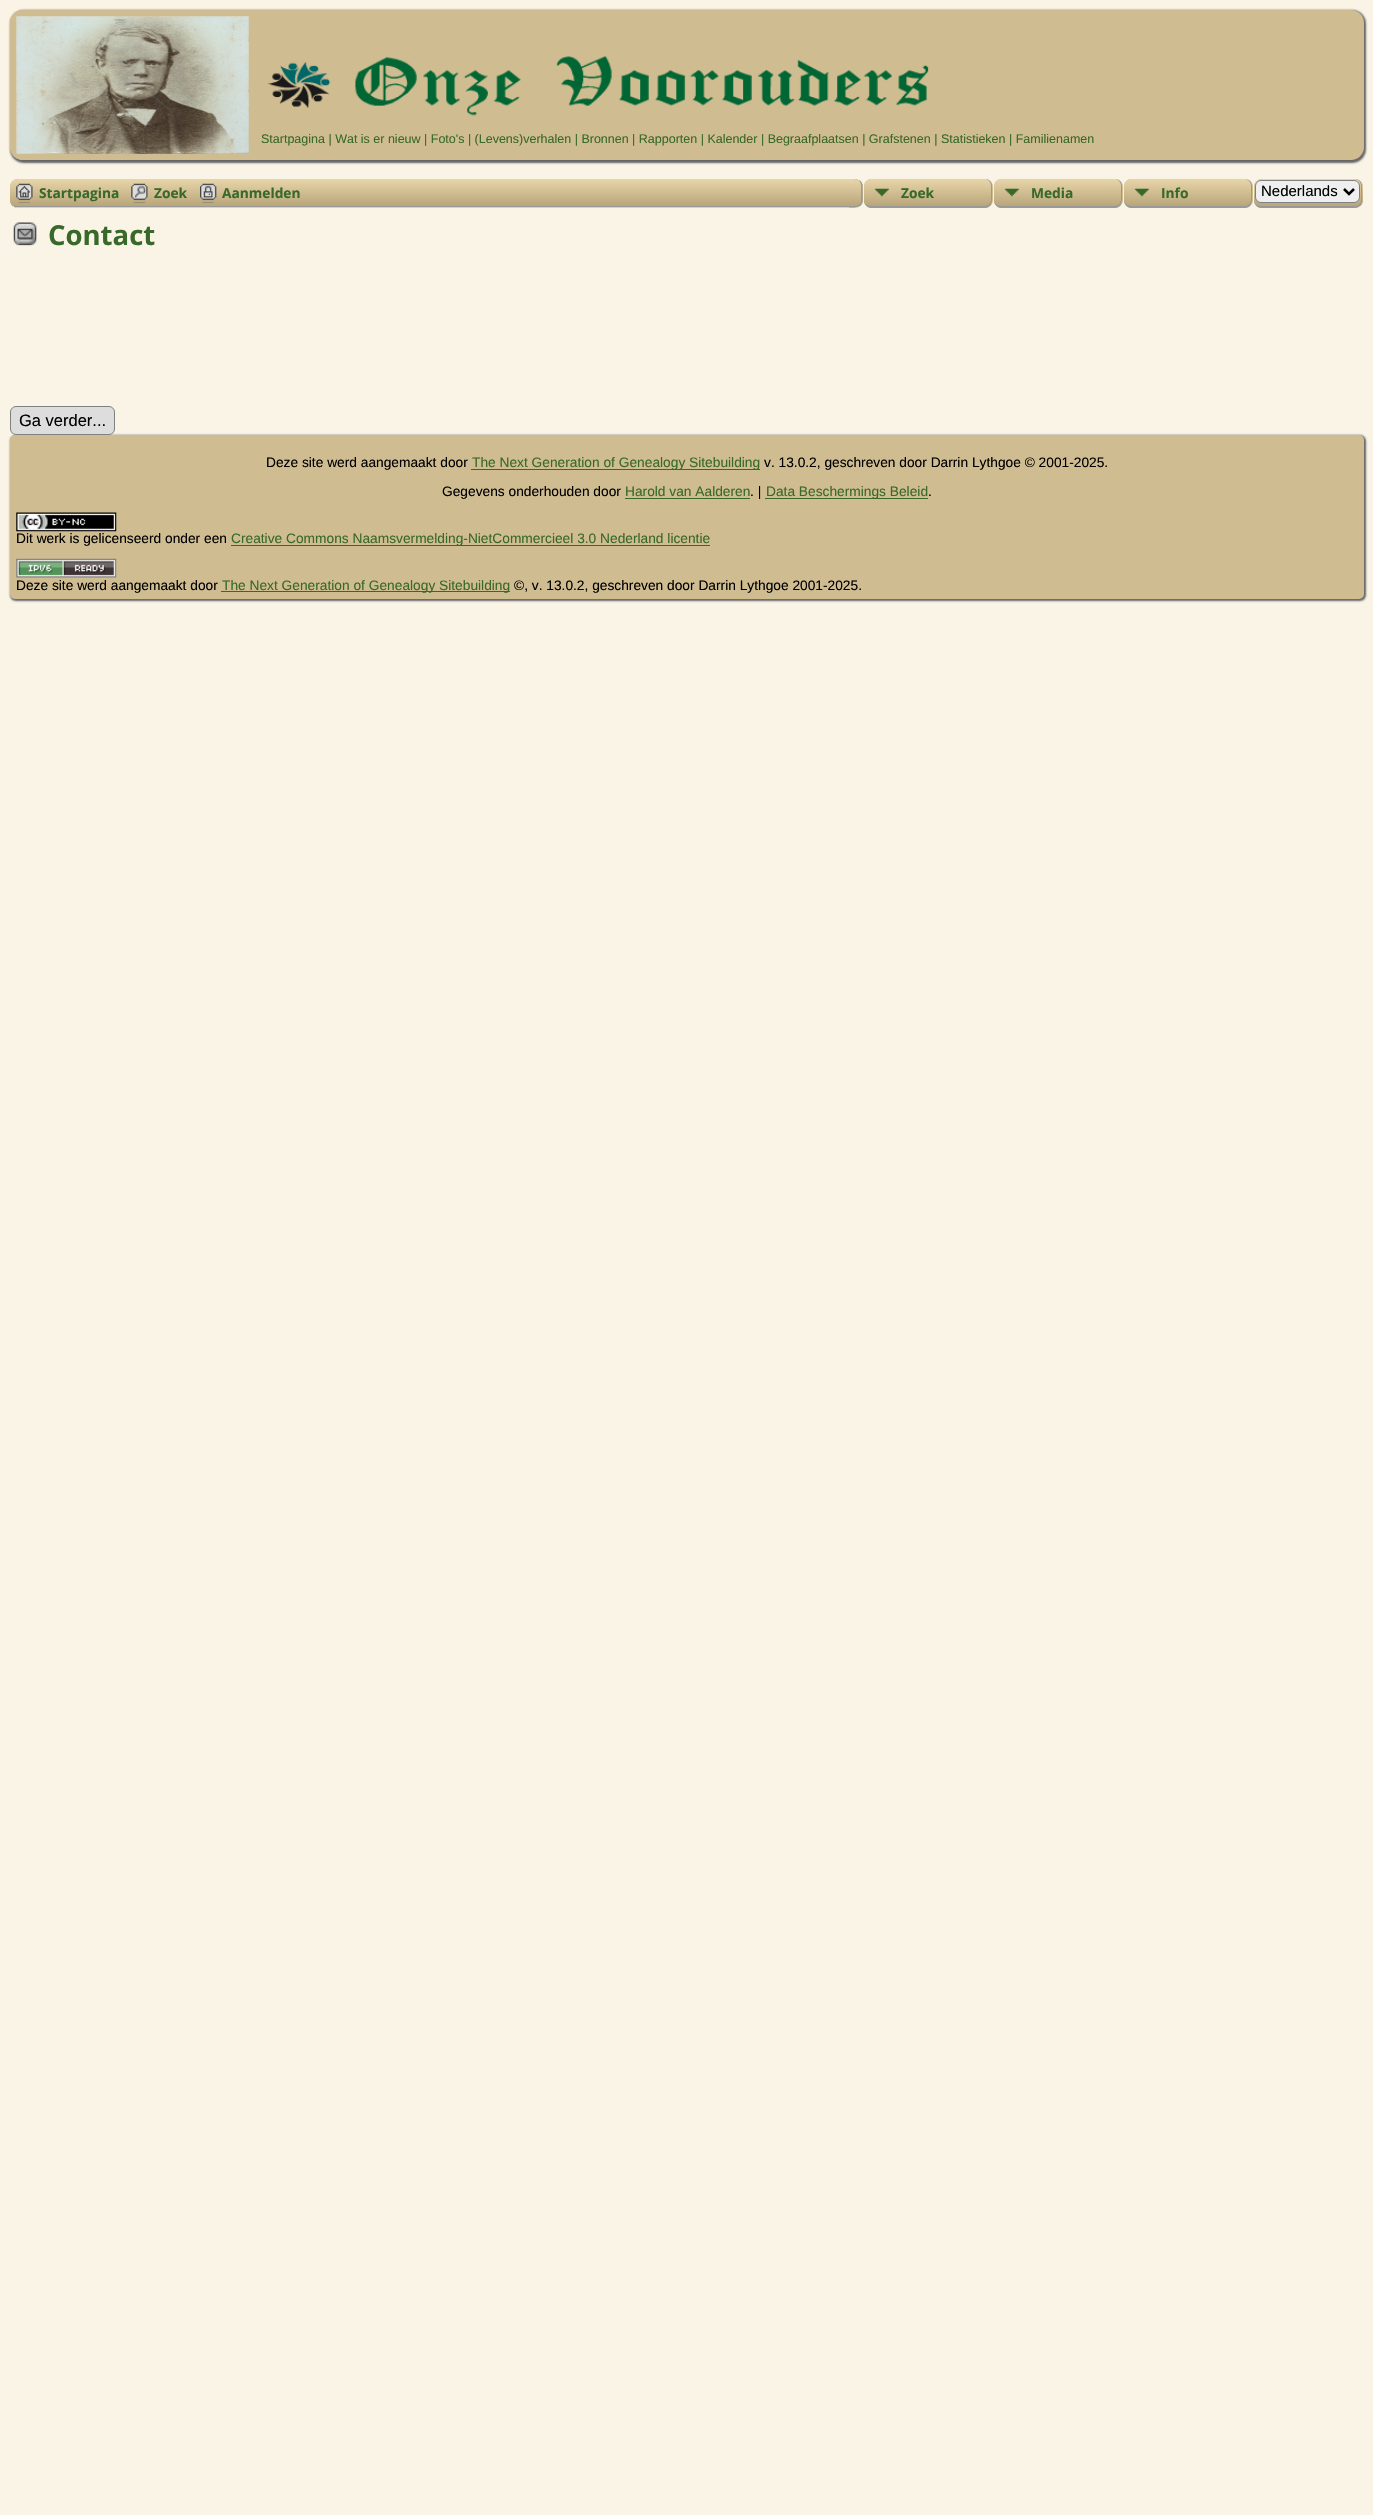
void draw(SkCanvas* canvas) {
	SkPaint fill;
	fill.setAntiAlias(true);
	auto makeFont = [&](const char* family, int weight, float size, bool italic = false) {
		SkFontStyle style(weight, SkFontStyle::kNormal_Width,
			italic ? SkFontStyle::kItalic_Slant : SkFontStyle::kUpright_Slant);
		SkFont result(fontMgr->matchFamilyStyle(family, style), size);
		result.setSubpixel(true);
		return result;
	};
	auto text = [&](const char* s, float x, float y, const SkFont& font) {
		canvas->drawString(s, x, y, font, fill);
	};
	auto box = [&](float l, float t, float r, float b) {
		canvas->drawRect(SkRect::MakeLTRB(l, t, r, b), fill);
	};
	auto roundBox = [&](float l, float t, float r, float b, float radius) {
		canvas->drawRoundRect(SkRect::MakeLTRB(l, t, r, b), radius, radius, fill);
	};
	auto picture = [&](const char* path, float l, float t, float r, float b) {
		auto image = SkImages::DeferredFromEncodedData(SkData::MakeFromFileName(path));
		canvas->drawImageRect(image, SkRect::MakeLTRB(l, t, r, b), SkSamplingOptions());
	};
	canvas->clear(0xFFFAF4E6);
	fill.setColor(0xFF666666);
	fill.setMaskFilter(SkMaskFilter::MakeBlur(kNormal_SkBlurStyle, 1));
	canvas->drawRoundRect(SkRect::MakeLTRB(10, 10, 1366, 163), 14, 14, fill);
	fill.setMaskFilter(nullptr);
	fill.setColor(0xFFD0BC91);
	roundBox(10, 10, 1364, 160, 13);
	roundBox(10, 10, 255, 160, 13);
	picture("image0.png", 16, 16, 249, 154);
	picture("image1.png", 267, 56, 929, 116);
	roundBox(10, 179, 1364, 208, 8);
	canvas->save();
	canvas->clipPath(SkPathBuilder().moveTo(18, 179).lineTo(1356, 179).cubicTo(1360.5f, 179, 1364, 182.5f, 1364, 187).lineTo(1364, 200).cubicTo(1364, 204.5f, 1360.5f, 208, 1356, 208).lineTo(18, 208).cubicTo(13.5f, 208, 10, 204.5f, 10, 200).lineTo(10, 187).cubicTo(10, 182.5f, 13.5f, 179, 18, 179).close().detach(), true);
	{
		const SkColor colors[] = {0xFFE8D5A9, 0xFFB8A579};
		const float stops[] = {0, 1};
		const SkPoint ends[] = {{687, 179}, {687, 206}};
		fill.setShader(SkGradientShader::MakeLinear(ends, colors, stops, 2, SkTileMode::kClamp));
		fill.setAlpha(255);
	}
	canvas->drawPath(SkPathBuilder().moveTo(18, 179).lineTo(1356, 179).cubicTo(1360.5f, 179, 1364, 182.5f, 1364, 187).lineTo(1364, 206).lineTo(10, 206).lineTo(10, 187).cubicTo(10, 182.5f, 13.5f, 179, 18, 179).close().detach(), fill);
	{
		const SkColor colors[] = {0xFFE8D5A9, 0xFFB8A579};
		const float stops[] = {0, 1};
		const SkPoint ends[] = {{687, 206}, {687, 234}};
		fill.setShader(SkGradientShader::MakeLinear(ends, colors, stops, 2, SkTileMode::kClamp));
		fill.setAlpha(255);
	}
	box(10, 206, 849, 208);
	canvas->restore();
	fill.setShader(nullptr);
	fill.setColor(0xFF999999);
	box(14, 206, 849, 207);
	picture("image2.png", 16, 183, 33, 203);
	picture("image3.png", 131, 183, 148, 203);
	picture("image4.png", 200, 183, 217, 203);
	fill.setColor(0xFFFAF4E6);
	box(855, 179, 1364, 208);
	canvas->save();
	canvas->clipPath(SkPathBuilder().moveTo(849, 179).lineTo(855, 179).cubicTo(859.5f, 179, 863, 182.5f, 863, 187).lineTo(863, 200).cubicTo(863, 204.5f, 859.5f, 208, 855, 208).lineTo(849, 208).close().detach(), true);
	{
		const SkColor colors[] = {0xFFE8D5A9, 0xFFB8A579};
		const float stops[] = {0, 1};
		const SkPoint ends[] = {{855, 179}, {855, 206}};
		fill.setShader(SkGradientShader::MakeLinear(ends, colors, stops, 2, SkTileMode::kClamp));
		fill.setAlpha(255);
	}
	box(849, 179, 863, 206);
	{
		const SkColor colors[] = {0xFFE8D5A9, 0xFFB8A579};
		const float stops[] = {0, 1};
		const SkPoint ends[] = {{855, 206}, {855, 234}};
		fill.setShader(SkGradientShader::MakeLinear(ends, colors, stops, 2, SkTileMode::kClamp));
		fill.setAlpha(255);
	}
	box(849, 206, 863, 208);
	canvas->restore();
	fill.setShader(nullptr);
	fill.setColor(0xFF999999);
	canvas->drawPath(SkPathBuilder(SkPathFillType::kEvenOdd).moveTo(849, 179).cubicTo(854, 179, 861, 178, 862.5f, 184.5f).lineTo(862.5f, 201.5f).cubicTo(861, 208.5f, 854, 207.5f, 849, 207.5f).close().moveTo(849, 179).lineTo(856.5f, 179).cubicTo(862.5f, 180.5f, 861, 188.5f, 861, 193).lineTo(861, 201.5f).cubicTo(860, 207, 853.5f, 206, 849, 206).close().detach(), fill);
	fill.setColor(0xFFD0BC91);
	roundBox(864, 179, 993, 208, 8);
	picture("image5.png", 863, 178, 992, 207);
	fill.setColor(0xFF999999);
	canvas->drawPath(SkPathBuilder(SkPathFillType::kEvenOdd).moveTo(871, 179).lineTo(985, 179).cubicTo(989, 179, 992, 182, 992, 186).lineTo(992, 200).cubicTo(992, 204, 989, 208, 985, 208).lineTo(871, 208).cubicTo(867, 208, 864, 204, 864, 200).lineTo(864, 186).cubicTo(864, 182, 867, 179, 871, 179).close().moveTo(871, 179).lineTo(985, 179).cubicTo(988, 179, 991, 182, 991, 186).lineTo(991, 200).cubicTo(991, 203, 988, 206, 985, 206).lineTo(871, 206).cubicTo(867, 206, 864, 203, 864, 200).lineTo(864, 186).cubicTo(864, 182, 867, 179, 871, 179).close().detach(), fill);
	fill.setColor(0xFFD0BC91);
	roundBox(994, 179, 1123, 208, 8);
	picture("image6.png", 993, 178, 1122, 207);
	fill.setColor(0xFF999999);
	canvas->drawPath(SkPathBuilder(SkPathFillType::kEvenOdd).moveTo(1001, 179).lineTo(1115, 179).cubicTo(1119, 179, 1122, 182, 1122, 186).lineTo(1122, 200).cubicTo(1122, 204, 1119, 208, 1115, 208).lineTo(1001, 208).cubicTo(997, 208, 994, 204, 994, 200).lineTo(994, 186).cubicTo(994, 182, 997, 179, 1001, 179).close().moveTo(1001, 179).lineTo(1115, 179).cubicTo(1118, 179, 1121, 182, 1121, 186).lineTo(1121, 200).cubicTo(1121, 203, 1118, 206, 1115, 206).lineTo(1001, 206).cubicTo(997, 206, 994, 203, 994, 200).lineTo(994, 186).cubicTo(994, 182, 997, 179, 1001, 179).close().detach(), fill);
	fill.setColor(0xFFD0BC91);
	roundBox(1124, 179, 1253, 208, 8);
	picture("image5.png", 1123, 178, 1252, 207);
	fill.setColor(0xFF999999);
	canvas->drawPath(SkPathBuilder(SkPathFillType::kEvenOdd).moveTo(1131, 179).lineTo(1245, 179).cubicTo(1249, 179, 1252, 182, 1252, 186).lineTo(1252, 200).cubicTo(1252, 204, 1249, 208, 1245, 208).lineTo(1131, 208).cubicTo(1127, 208, 1124, 204, 1124, 200).lineTo(1124, 186).cubicTo(1124, 182, 1127, 179, 1131, 179).close().moveTo(1131, 179).lineTo(1245, 179).cubicTo(1248, 179, 1251, 182, 1251, 186).lineTo(1251, 200).cubicTo(1251, 203, 1248, 206, 1245, 206).lineTo(1131, 206).cubicTo(1127, 206, 1124, 203, 1124, 200).lineTo(1124, 186).cubicTo(1124, 182, 1127, 179, 1131, 179).close().detach(), fill);
	fill.setColor(0xFFD0BC91);
	roundBox(1254, 179, 1363, 208, 8);
	canvas->save();
	canvas->clipPath(SkPathBuilder().moveTo(1262, 179).lineTo(1355, 179).cubicTo(1359.5f, 179, 1363, 182.5f, 1363, 187).lineTo(1363, 200).cubicTo(1363, 204.5f, 1359.5f, 208, 1355, 208).lineTo(1262, 208).cubicTo(1257.5f, 208, 1254, 204.5f, 1254, 200).lineTo(1254, 187).cubicTo(1254, 182.5f, 1257.5f, 179, 1262, 179).close().detach(), true);
	{
		const SkColor colors[] = {0xFFE8D5A9, 0xFFB8A579};
		const float stops[] = {0, 1};
		const SkPoint ends[] = {{1308, 179}, {1308, 206}};
		fill.setShader(SkGradientShader::MakeLinear(ends, colors, stops, 2, SkTileMode::kClamp));
		fill.setAlpha(255);
	}
	canvas->drawPath(SkPathBuilder().moveTo(1262, 179).lineTo(1355, 179).cubicTo(1359.5f, 179, 1363, 182.5f, 1363, 187).lineTo(1363, 206).lineTo(1254, 206).lineTo(1254, 187).cubicTo(1254, 182.5f, 1257.5f, 179, 1262, 179).close().detach(), fill);
	{
		const SkColor colors[] = {0xFFE8D5A9, 0xFFB8A579};
		const float stops[] = {0, 1};
		const SkPoint ends[] = {{1308, 206}, {1308, 234}};
		fill.setShader(SkGradientShader::MakeLinear(ends, colors, stops, 2, SkTileMode::kClamp));
		fill.setAlpha(255);
	}
	box(1254, 206, 1363, 208);
	canvas->restore();
	fill.setShader(nullptr);
	fill.setColor(0xFF999999);
	canvas->drawPath(SkPathBuilder(SkPathFillType::kEvenOdd).moveTo(1261, 179).lineTo(1355, 179).cubicTo(1359, 179, 1362, 182, 1362, 186).lineTo(1362, 200).cubicTo(1362, 204, 1359, 208, 1355, 208).lineTo(1261, 208).cubicTo(1257, 208, 1254, 204, 1254, 200).lineTo(1254, 186).cubicTo(1254, 182, 1257, 179, 1261, 179).close().moveTo(1261, 179).lineTo(1355, 179).cubicTo(1358, 179, 1361, 182, 1361, 186).lineTo(1361, 200).cubicTo(1361, 203, 1358, 206, 1355, 206).lineTo(1261, 206).cubicTo(1257, 206, 1254, 203, 1254, 200).lineTo(1254, 186).cubicTo(1254, 182, 1257, 179, 1261, 179).close().detach(), fill);
	fill.setColor(0xFFEFEFEF);
	canvas->drawRoundRect(SkRect::MakeLTRB(1255.5f, 180.5f, 1359.5f, 202.5f), 5.5f, 5.5f, fill);
	fill.setStyle(SkPaint::kStroke_Style);
	fill.setStrokeWidth(1);
	fill.setColor(0xFF808080);
	canvas->drawRoundRect(SkRect::MakeLTRB(1255.5f, 180.5f, 1359.5f, 202.5f), 5.5f, 5.5f, fill);
	fill.setStrokeWidth(2.5f);
	fill.setColor(0xFF000000);
	canvas->drawPath(SkPathBuilder().moveTo(1344, 189).lineTo(1349, 194).lineTo(1354, 189).detach(), fill);
	picture("image7.png", 13, 222, 37, 246);
	fill.setStyle(SkPaint::kFill_Style);
	fill.setColor(0xFF666666);
	fill.setMaskFilter(SkMaskFilter::MakeBlur(kNormal_SkBlurStyle, 1));
	canvas->drawRoundRect(SkRect::MakeLTRB(10, 435, 1366, 601), 6, 6, fill);
	fill.setMaskFilter(nullptr);
	fill.setColor(0xFFDDDDDD);
	canvas->drawRoundRect(SkRect::MakeLTRB(10.5f, 406.5f, 114.5f, 434.5f), 5.5f, 5.5f, fill);
	fill.setStyle(SkPaint::kStroke_Style);
	fill.setStrokeWidth(1);
	fill.setColor(0xFF808080);
	canvas->drawRoundRect(SkRect::MakeLTRB(10.5f, 406.5f, 114.5f, 434.5f), 5.5f, 5.5f, fill);
	fill.setStyle(SkPaint::kFill_Style);
	fill.setColor(0xFFD0BC91);
	roundBox(10, 435, 1364, 599, 5);
	fill.setColor(0xFF39692A);
	box(471, 469, 760, 470);
	box(625, 498, 750, 499);
	box(765, 498, 928, 499);
	picture("image8.png", 16, 512, 117, 532);
	box(231, 545, 710, 546);
	picture("image9.png", 16, 558, 117, 578);
	box(221, 591, 510, 592);
	auto font1 = makeFont("Liberation Sans", 400, 12.5f);
	text("Startpagina | Wat is er nieuw | Foto's | (Levens)verhalen | Bronnen | Rapporten | Kalender | Begraafplaatsen | Grafstenen | Statistieken | Familienamen", 261, 143, font1);
	auto font2 = makeFont("Open Sans", 700, 13.75f);
	text("Startpagina", 39, 198, font2);
	text("Zoek", 154, 198, font2);
	text("Aanmelden", 222, 198, font2);
	text("Zoek", 901, 198, font2);
	text("Media", 1031, 198, font2);
	text("Info", 1161, 198, font2);
	auto font3 = makeFont("Liberation Sans", 400, 15);
	fill.setColor(0xFF000000);
	text("Nederlands", 1261, 196, font3);
	auto font4 = makeFont("Open Sans", 700, 27.5f);
	fill.setColor(0xFF39692A);
	text("Contact", 48, 245, font4);
	auto font5 = makeFont("Liberation Sans", 400, 16.5f);
	fill.setColor(0xFF000000);
	text("Ga verder...", 19, 426, font5);
	auto font6 = makeFont("Liberation Sans", 400, 13.75f);
	text("Deze site werd aangemaakt door", 266, 467, font6);
	fill.setColor(0xFF39692A);
	text("The Next Generation of Genealogy Sitebuilding", 472, 467, font6);
	fill.setColor(0xFF000000);
	text("v. 13.0.2, geschreven door Darrin Lythgoe © 2001-2025.", 764, 467, font6);
	text("Gegevens onderhouden door", 442, 496, font6);
	fill.setColor(0xFF39692A);
	text("Harold van Aalderen", 625, 496, font6);
	fill.setColor(0xFF000000);
	text(". |", 750, 496, font6);
	fill.setColor(0xFF39692A);
	text("Data Beschermings Beleid", 766, 496, font6);
	fill.setColor(0xFF000000);
	text(".", 928, 496, font6);
	text("Dit werk is gelicenseerd onder een", 16, 543, font6);
	fill.setColor(0xFF39692A);
	text("Creative Commons Naamsvermelding-NietCommercieel 3.0 Nederland licentie", 231, 543, font6);
	fill.setColor(0xFF000000);
	text("Deze site werd aangemaakt door", 16, 590, font6);
	fill.setColor(0xFF39692A);
	text("The Next Generation of Genealogy Sitebuilding", 222, 590, font6);
	fill.setColor(0xFF000000);
	text("©, v. 13.0.2, geschreven door Darrin Lythgoe 2001-2025.", 514, 590, font6);
}
